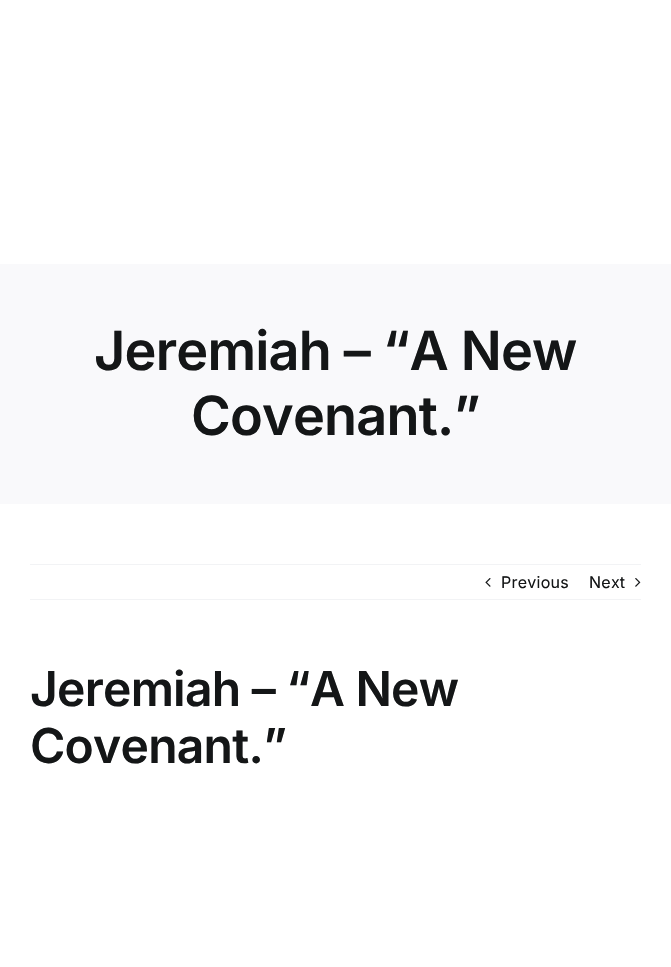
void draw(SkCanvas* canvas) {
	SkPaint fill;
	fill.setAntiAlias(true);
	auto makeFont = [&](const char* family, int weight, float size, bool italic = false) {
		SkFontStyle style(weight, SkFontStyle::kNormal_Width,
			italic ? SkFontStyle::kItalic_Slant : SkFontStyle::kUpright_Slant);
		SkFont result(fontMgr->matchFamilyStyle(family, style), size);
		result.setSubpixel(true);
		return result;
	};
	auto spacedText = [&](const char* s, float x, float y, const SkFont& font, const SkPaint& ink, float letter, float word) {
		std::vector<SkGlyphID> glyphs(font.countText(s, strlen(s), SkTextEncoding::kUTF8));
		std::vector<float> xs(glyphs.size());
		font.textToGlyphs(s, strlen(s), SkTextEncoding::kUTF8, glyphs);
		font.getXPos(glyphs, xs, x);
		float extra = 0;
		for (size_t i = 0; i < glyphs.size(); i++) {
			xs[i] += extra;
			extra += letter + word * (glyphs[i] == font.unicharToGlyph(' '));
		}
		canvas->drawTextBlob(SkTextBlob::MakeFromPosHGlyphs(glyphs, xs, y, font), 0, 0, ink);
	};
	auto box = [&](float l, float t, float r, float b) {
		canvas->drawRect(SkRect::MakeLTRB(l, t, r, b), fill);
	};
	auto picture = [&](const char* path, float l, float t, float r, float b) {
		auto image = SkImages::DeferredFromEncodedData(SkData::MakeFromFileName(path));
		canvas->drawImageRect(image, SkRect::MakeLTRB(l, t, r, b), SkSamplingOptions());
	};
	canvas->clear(0xFFFFFFFF);
	fill.setColor(0xFFF9F9FB);
	box(0, 264, 671, 504);
	fill.setColor(0xFFF2F3F5);
	box(30, 564, 641, 565);
	box(30, 599, 641, 600);
	picture("image0.png", 485, 578, 491, 587);
	picture("image1.png", 635, 578, 641, 587);
	auto font1 = makeFont("Inter", 600, 54);
	fill.setColor(0xFF141617);
	spacedText("Jeremiah – “A New", 94, 370, font1, fill, -0.8f, 0);
	spacedText("Covenant.”", 191, 435, font1, fill, -0.8f, 0);
	auto font2 = makeFont("Inter", 400, 16);
	spacedText("Previous", 501, 588, font2, fill, 0.25f, 0);
	spacedText("Next", 589, 588, font2, fill, 0.25f, 0);
	auto font3 = makeFont("Inter", 600, 48);
	spacedText("Jeremiah – “A New", 30, 706, font3, fill, -0.75f, 0);
	spacedText("Covenant.”", 30, 763, font3, fill, -0.75f, 0);
}
